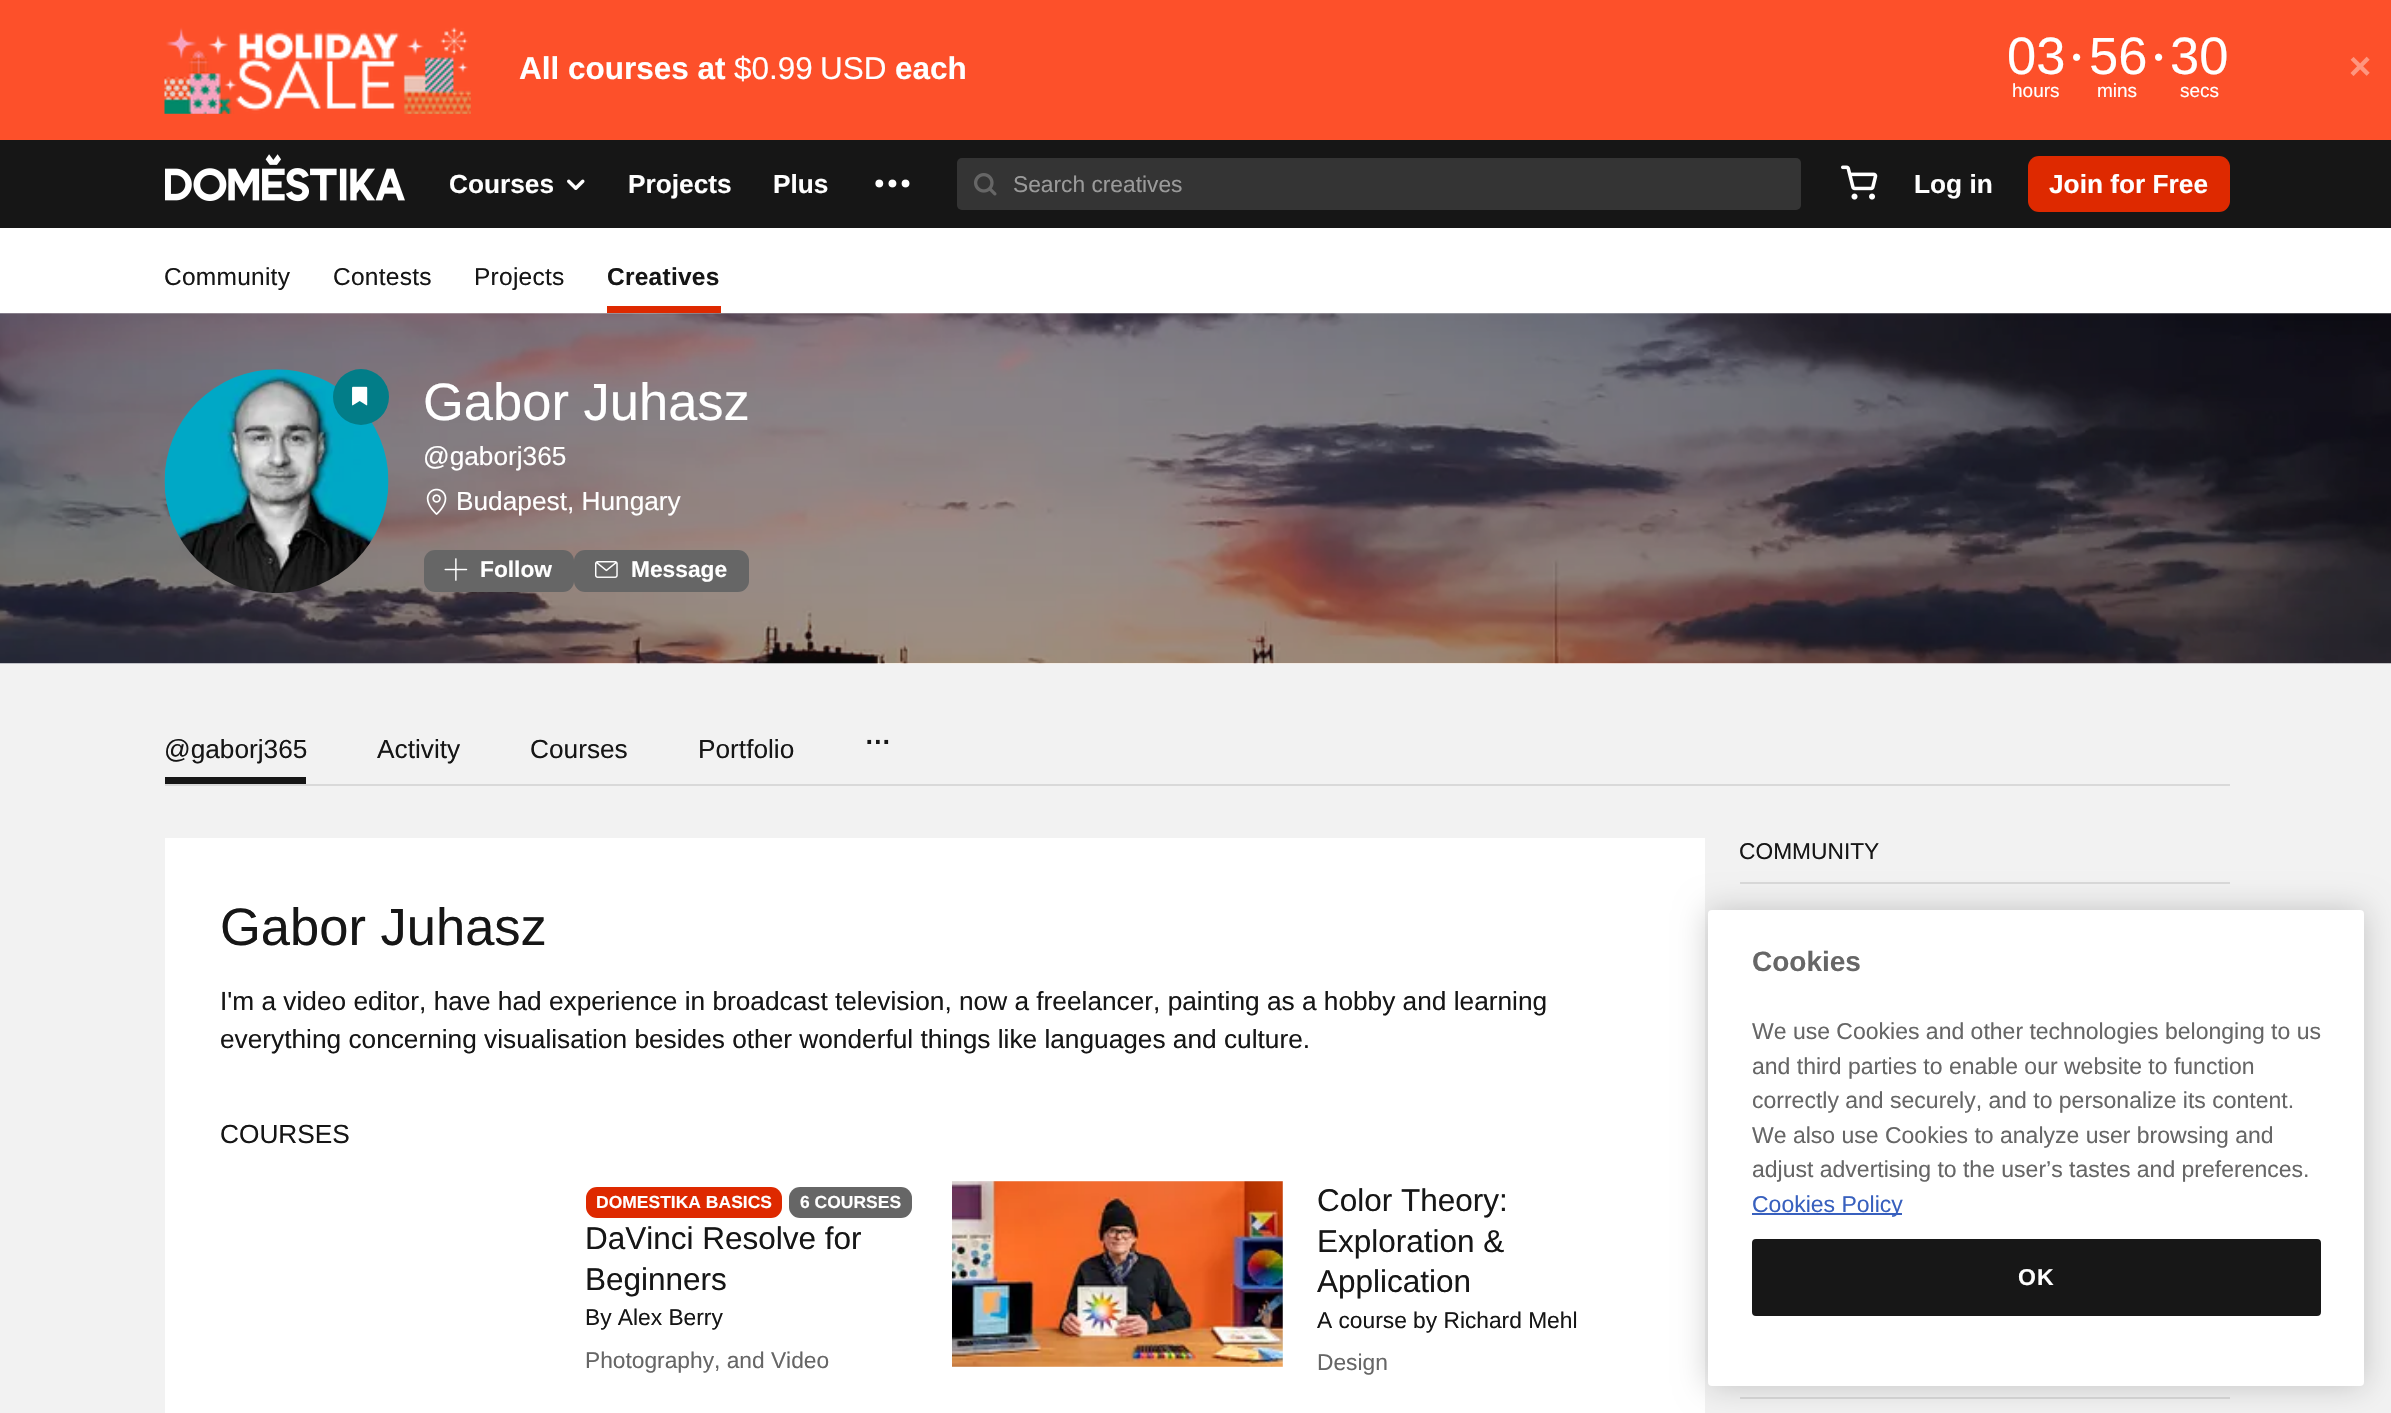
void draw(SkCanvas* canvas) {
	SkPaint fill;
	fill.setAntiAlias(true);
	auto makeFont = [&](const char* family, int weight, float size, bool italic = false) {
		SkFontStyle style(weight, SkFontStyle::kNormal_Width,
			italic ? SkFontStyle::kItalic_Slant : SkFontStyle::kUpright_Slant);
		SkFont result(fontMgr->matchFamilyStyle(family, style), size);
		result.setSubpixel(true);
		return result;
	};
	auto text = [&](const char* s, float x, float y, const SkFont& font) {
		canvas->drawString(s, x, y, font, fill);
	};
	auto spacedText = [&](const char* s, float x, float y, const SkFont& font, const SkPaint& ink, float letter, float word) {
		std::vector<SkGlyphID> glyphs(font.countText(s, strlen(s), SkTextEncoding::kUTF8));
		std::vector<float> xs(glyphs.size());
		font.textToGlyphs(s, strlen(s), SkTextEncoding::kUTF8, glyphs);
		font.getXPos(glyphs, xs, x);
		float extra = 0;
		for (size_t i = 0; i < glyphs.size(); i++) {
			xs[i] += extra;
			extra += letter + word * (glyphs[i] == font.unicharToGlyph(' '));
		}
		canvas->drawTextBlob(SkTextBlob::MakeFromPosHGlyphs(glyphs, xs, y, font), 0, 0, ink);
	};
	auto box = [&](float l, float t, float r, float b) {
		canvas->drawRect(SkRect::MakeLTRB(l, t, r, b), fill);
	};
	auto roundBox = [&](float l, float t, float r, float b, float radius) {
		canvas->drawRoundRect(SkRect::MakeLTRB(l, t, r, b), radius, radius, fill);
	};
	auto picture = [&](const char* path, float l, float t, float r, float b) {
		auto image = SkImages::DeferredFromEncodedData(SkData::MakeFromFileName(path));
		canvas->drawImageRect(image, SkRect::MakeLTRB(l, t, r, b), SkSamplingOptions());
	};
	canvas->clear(0xFFF2F2F2);
	fill.setColor(0xFFFD502A);
	box(0, 0, 2391, 140);
	picture("image0.png", 164, 27, 471, 114);
	fill.setColor(0xFF161616);
	box(0, 140, 2391, 228);
	picture("image1.png", 165, 154, 405, 202);
	picture("image2.png", 567, 179, 585, 190);
	picture("image3.png", 875, 179, 910, 188);
	fill.setColor(0xFF343434);
	roundBox(957, 158, 1801, 210, 5);
	picture("image4.png", 974, 173, 997, 196);
	picture("image5.png", 1841, 165, 1878, 200);
	fill.setColor(0xFFDE2900);
	roundBox(2028, 156, 2230, 212, 11);
	fill.setColor(0xFFFFFFFF);
	box(0, 228, 2391, 314);
	fill.setColor(0xFFDE2900);
	box(607, 306, 721, 313);
	picture("image6.png", 0, 313, 2391, 664);
	picture("image7.png", 164, 369, 389, 594);
	fill.setColor(0xFF027D88);
	canvas->drawCircle(361, 397, 28, fill);
	picture("image8.png", 352, 386, 368, 406);
	picture("image9.png", 426, 488, 447, 515);
	fill.setColor(0xFF666666);
	roundBox(424, 550, 574, 592, 11);
	picture("image10.png", 444, 558, 468, 581);
	roundBox(574, 550, 749, 592, 11);
	picture("image11.png", 595, 561, 618, 578);
	fill.setColor(0xFFD9D9D9);
	box(165, 784, 2230, 786);
	fill.setColor(0xFF161616);
	box(165, 777, 306, 784);
	fill.setColor(0xFFD9D9D9);
	box(1740, 882, 2230, 884);
	box(1740, 1397, 2230, 1399);
	fill.setColor(0xFFFFFFFF);
	box(165, 838, 1705, 1413);
	fill.setColor(0xFFDE2900);
	roundBox(586, 1187, 782, 1218, 11);
	fill.setColor(0xFF666666);
	roundBox(789, 1187, 912, 1218, 11);
	fill.setColor(0xFFF2F2F2);
	box(952, 1181, 1283, 1367);
	picture("image12.png", 952, 1181, 1283, 1367);
	fill.setColor(0x33000000);
	fill.setMaskFilter(SkMaskFilter::MakeBlur(kNormal_SkBlurStyle, 16));
	canvas->drawRoundRect(SkRect::MakeLTRB(1708, 910, 2364, 1386), 4, 4, fill);
	fill.setMaskFilter(nullptr);
	fill.setColor(0xFFFFFFFF);
	roundBox(1708, 910, 2364, 1386, 4);
	fill.setColor(0xFF3860BE);
	box(1752, 1213, 1902, 1215);
	fill.setColor(0xFF171717);
	canvas->drawRoundRect(SkRect::MakeLTRB(1753, 1240, 2320, 1315), 3, 3, fill);
	fill.setStyle(SkPaint::kStroke_Style);
	fill.setStrokeWidth(2);
	canvas->drawRoundRect(SkRect::MakeLTRB(1753, 1240, 2320, 1315), 3, 3, fill);
	auto font1 = makeFont("Liberation Sans", 700, 31.5f);
	fill.setStyle(SkPaint::kFill_Style);
	fill.setColor(0xFFFFFFFF);
	text("All courses at", 519, 79, font1);
	auto font2 = makeFont("Liberation Sans", 400, 31.5f);
	text("$0.99", 734, 79, font2);
	text("USD", 820, 79, font2);
	text("each", 895, 79, font1);
	auto font3 = makeFont("Liberation Sans", 400, 52.5f);
	text("03", 2007, 74, font3);
	auto font4 = makeFont("Liberation Sans", 400, 19);
	text("hours", 2012, 97, font4);
	auto font5 = makeFont("Liberation Sans", 400, 26.25f);
	text("•", 2072, 66, font5);
	text("56", 2089, 74, font3);
	text("mins", 2097, 97, font4);
	text("•", 2154, 66, font5);
	text("30", 2170, 74, font3);
	text("secs", 2180, 97, font4);
	auto font6 = makeFont("Liberation Sans", 700, 38);
	fill.setColor(0xFFFE967F);
	text("×", 2349, 79, font6);
	auto font7 = makeFont("Liberation Sans", 700, 26.25f);
	fill.setColor(0xFFFFFFFF);
	text("Courses", 449, 193, font7);
	text("Projects", 628, 193, font7);
	text("Plus", 773, 193, font7);
	auto font8 = makeFont("Liberation Sans", 400, 22.75f);
	fill.setColor(0xFF9A9A9A);
	text("Search creatives", 1013, 192, font8);
	fill.setColor(0xFFFFFFFF);
	text("Log in", 1914, 193, font7);
	text("Join for Free", 2049, 193, font7);
	auto font9 = makeFont("Liberation Sans", 400, 24.5f);
	fill.setColor(0xFF161616);
	spacedText("Community", 164, 285, font9, fill, 0.25f, 0);
	spacedText("Contests", 333, 285, font9, fill, 0.25f, 0);
	spacedText("Projects", 474, 285, font9, fill, 0.25f, 0);
	auto font10 = makeFont("Liberation Sans", 700, 24.5f);
	spacedText("Creatives", 607, 285, font10, fill, 0.25f, 0);
	fill.setColor(0xFFFFFFFF);
	text("Gabor Juhasz", 423, 420, font3);
	text("@gaborj365", 423, 465, font5);
	text("Budapest, Hungary", 456, 510, font5);
	auto font11 = makeFont("Liberation Sans", 700, 22.75f);
	text("Follow", 480, 577, font11);
	text("Message", 631, 577, font11);
	fill.setColor(0xFF161616);
	text("@gaborj365", 164, 758, font5);
	text("Activity", 377, 758, font5);
	text("Courses", 530, 758, font5);
	text("Portfolio", 698, 758, font5);
	auto font12 = makeFont("Liberation Sans", 400, 38);
	spacedText("...", 864, 744, font12, fill, -2, 0);
	text("COMMUNITY", 1739, 859, font8);
	text("Gabor Juhasz", 220, 945, font3);
	text("I'm a video editor, have had experience in broadcast television, now a freelancer, painting as a hobby and learning", 220, 1010, font5);
	text("everything concerning visualisation besides other wonderful things like languages and culture.", 220, 1048, font5);
	text("COURSES", 220, 1143, font5);
	auto font13 = makeFont("Liberation Sans", 700, 17.5f);
	fill.setColor(0xFFFFFFFF);
	text("DOMESTIKA BASICS", 596, 1208, font13);
	text("6 COURSES", 800, 1208, font13);
	fill.setColor(0xFF161616);
	text("DaVinci Resolve for", 585, 1249, font2);
	text("Beginners", 585, 1290, font2);
	text("By Alex Berry", 585, 1325, font8);
	fill.setColor(0xFF666666);
	text("Photography, and Video", 585, 1368, font8);
	fill.setColor(0xFF161616);
	text("Color Theory:", 1317, 1211, font2);
	text("Exploration &", 1317, 1252, font2);
	text("Application", 1317, 1292, font2);
	text("A course by Richard Mehl", 1317, 1328, font8);
	fill.setColor(0xFF666666);
	text("Design", 1317, 1370, font8);
	auto font14 = makeFont("Liberation Sans", 700, 28);
	text("Cookies", 1752, 971, font14);
	auto font15 = makeFont("Liberation Sans", 400, 23);
	text("We use Cookies and other technologies belonging to us", 1752, 1039, font15);
	text("and third parties to enable our website to function", 1752, 1074, font15);
	text("correctly and securely, and to personalize its content.", 1752, 1108, font15);
	text("We also use Cookies to analyze user browsing and", 1752, 1143, font15);
	text("adjust advertising to the user’s tastes and preferences.", 1752, 1177, font15);
	fill.setColor(0xFF3860BE);
	text("Cookies Policy", 1752, 1212, font15);
	auto font16 = makeFont("Liberation Sans", 700, 23);
	fill.setColor(0xFFFFFFFF);
	spacedText("OK", 2018, 1285, font16, fill, 1, 0);
}
